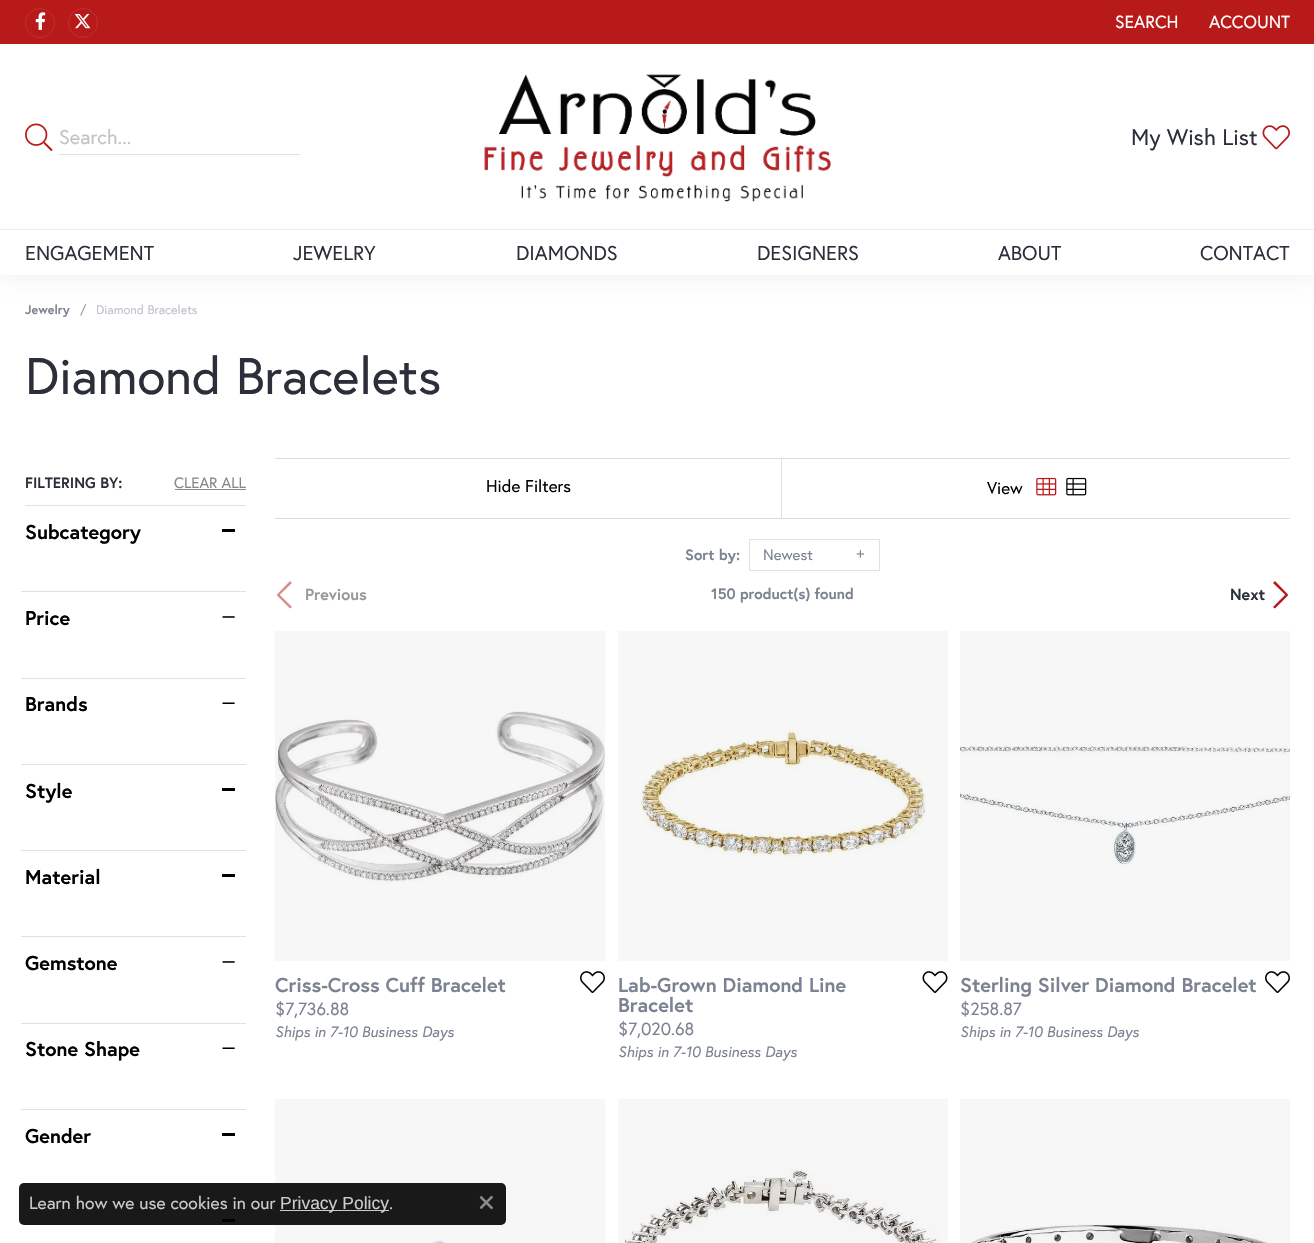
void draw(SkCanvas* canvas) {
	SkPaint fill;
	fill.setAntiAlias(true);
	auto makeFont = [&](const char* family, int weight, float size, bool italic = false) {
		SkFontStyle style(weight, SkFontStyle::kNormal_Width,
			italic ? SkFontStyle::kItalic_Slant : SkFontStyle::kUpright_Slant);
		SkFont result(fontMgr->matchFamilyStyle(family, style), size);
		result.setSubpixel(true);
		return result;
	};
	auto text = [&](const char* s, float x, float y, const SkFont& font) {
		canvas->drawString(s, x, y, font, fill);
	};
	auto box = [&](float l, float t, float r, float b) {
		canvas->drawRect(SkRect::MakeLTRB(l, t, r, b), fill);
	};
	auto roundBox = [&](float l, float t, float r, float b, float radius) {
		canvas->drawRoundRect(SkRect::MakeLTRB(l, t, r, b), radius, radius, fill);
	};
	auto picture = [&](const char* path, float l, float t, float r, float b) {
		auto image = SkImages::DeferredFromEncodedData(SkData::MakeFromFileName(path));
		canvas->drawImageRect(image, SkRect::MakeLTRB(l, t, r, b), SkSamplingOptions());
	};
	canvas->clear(0xFFB81919);
	fill.setStyle(SkPaint::kStroke_Style);
	fill.setStrokeWidth(1);
	fill.setColor(0xFFBF3030);
	canvas->drawCircle(40, 23, 14.5f, fill);
	picture("image0.png", 35, 12, 46, 30);
	canvas->drawCircle(83, 23, 14.5f, fill);
	picture("image1.png", 74, 14, 91, 29);
	fill.setStyle(SkPaint::kFill_Style);
	fill.setColor(0xFFFFFFFF);
	box(0, 275, 1314, 1243);
	fill.setColor(0x12000000);
	fill.setMaskFilter(SkMaskFilter::MakeBlur(kNormal_SkBlurStyle, 12.5f));
	canvas->drawRect(SkRect::MakeLTRB(0, 229, 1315, 275), fill);
	fill.setMaskFilter(nullptr);
	fill.setColor(0xFFFFFFFF);
	box(0, 44, 1314, 229);
	picture("image2.png", 25, 123, 53, 151);
	fill.setColor(0xFFE1E1E1);
	box(59, 154, 300, 155);
	picture("image3.png", 484, 74, 831, 202);
	picture("image4.png", 1262, 125, 1290, 150);
	fill.setColor(0xFFFFFFFF);
	box(0, 230, 1314, 275);
	fill.setColor(0xFFECECEC);
	box(0, 229, 1314, 230);
	fill.setColor(0xFFF7F7F7);
	box(960, 1099, 1290, 1243);
	box(618, 1099, 948, 1243);
	box(275, 1099, 605, 1243);
	box(960, 631, 1290, 961);
	box(618, 631, 948, 961);
	box(275, 631, 605, 961);
	fill.setColor(0xFFE1E1E1);
	box(25, 505, 246, 506);
	fill.setColor(0xFF878787);
	box(175, 489, 246, 490);
	fill.setColor(0xFFE1E1E1);
	box(21, 591, 246, 592);
	fill.setColor(0xFF000000);
	box(222, 529, 235, 532);
	fill.setColor(0xFFE1E1E1);
	box(21, 678, 246, 679);
	picture("image5.png", 222, 616, 235, 618);
	box(21, 764, 246, 765);
	picture("image6.png", 222, 702, 235, 704);
	box(21, 850, 246, 851);
	fill.setColor(0xFF000000);
	box(222, 788, 235, 791);
	fill.setColor(0xFFE1E1E1);
	box(21, 936, 246, 937);
	fill.setColor(0xFF000000);
	box(222, 874, 235, 877);
	fill.setColor(0xFFE1E1E1);
	box(21, 1023, 246, 1024);
	picture("image5.png", 222, 961, 235, 963);
	box(21, 1109, 246, 1110);
	picture("image6.png", 222, 1047, 235, 1049);
	box(21, 1195, 246, 1196);
	fill.setColor(0xFF000000);
	box(222, 1133, 235, 1136);
	box(222, 1219, 235, 1222);
	fill.setColor(0xFFDCDCDC);
	box(275, 458, 1290, 459);
	fill.setColor(0xFFE1E1E1);
	box(781, 459, 782, 518);
	picture("image7.png", 1036, 477, 1057, 496);
	picture("image8.png", 1066, 477, 1087, 496);
	fill.setColor(0xFFDCDCDC);
	box(275, 518, 1290, 519);
	fill.setStyle(SkPaint::kStroke_Style);
	fill.setColor(0xFFE1E1E1);
	canvas->drawRect(SkRect::MakeLTRB(749.5f, 539.5f, 879.5f, 570.5f), fill);
	fill.setStyle(SkPaint::kFill_Style);
	fill.setColor(0xFFDC8C8C);
	canvas->drawPath(SkPathBuilder().moveTo(277, 594.5f).lineTo(290, 581).lineTo(292, 583).lineTo(278.5f, 596).close().detach(), fill);
	canvas->drawPath(SkPathBuilder().moveTo(278.5f, 593.5f).lineTo(292, 607).lineTo(290, 608.5f).lineTo(277, 595.5f).close().detach(), fill);
	fill.setColor(0xFFB81919);
	canvas->drawPath(SkPathBuilder().moveTo(1275, 581).lineTo(1288, 594.5f).lineTo(1286.5f, 596).lineTo(1273, 583).close().detach(), fill);
	canvas->drawPath(SkPathBuilder().moveTo(1273, 607).lineTo(1286.5f, 593.5f).lineTo(1288, 595.5f).lineTo(1275, 608.5f).close().detach(), fill);
	picture("image9.png", 275, 711, 605, 884);
	picture("image10.png", 580, 971, 605, 993);
	picture("image11.png", 639, 730, 927, 858);
	picture("image12.png", 922, 971, 948, 993);
	picture("image13.png", 960, 745, 1290, 867);
	picture("image10.png", 1265, 971, 1290, 993);
	picture("image14.png", 432, 1240, 446, 1243);
	picture("image15.png", 624, 1169, 939, 1243);
	picture("image16.png", 971, 1224, 1271, 1243);
	fill.setColor(0xE6000000);
	roundBox(19, 1183, 506, 1225, 5);
	fill.setColor(0xFFCCCCCC);
	box(280, 1210, 389, 1211);
	picture("image17.png", 479, 1195, 493, 1210);
	auto font1 = makeFont("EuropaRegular", 400, 17.5f);
	fill.setColor(0xFFFFFFFF);
	text("SEARCH", 1115, 28, font1);
	text("ACCOUNT", 1209, 28, font1);
	auto font2 = makeFont("EuropaRegular", 400, 20);
	fill.setColor(0xFFC4C4C4);
	text("Search...", 59, 144, font2);
	auto font3 = makeFont("EuropaRegular", 400, 22.5f);
	fill.setColor(0xFF2B2F3A);
	text("My Wish List", 1131, 145, font3);
	text("ENGAGEMENT", 25, 260, font2);
	text("JEWELRY", 293, 260, font2);
	text("DIAMONDS", 516, 260, font2);
	text("DESIGNERS", 757, 260, font2);
	text("ABOUT", 998, 260, font2);
	text("CONTACT", 1200, 260, font2);
	auto font4 = makeFont("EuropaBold", 700, 12.5f);
	fill.setColor(0xFF7B8292);
	text("Jewelry", 25, 314, font4);
	auto font5 = makeFont("EuropaRegular", 400, 12.5f);
	fill.setColor(0xFF999999);
	text("/", 80, 314, font5);
	fill.setColor(0xFFC1C4CC);
	text("Diamond Bracelets", 96, 314, font5);
	auto font6 = makeFont("EuropaRegular", 400, 51.25f);
	fill.setColor(0xFF2B2F3A);
	text("Diamond Bracelets", 25, 394, font6);
	auto font7 = makeFont("EuropaBold", 700, 15);
	text("FILTERING BY:", 25, 488, font7);
	auto font8 = makeFont("EuropaRegular", 400, 15);
	fill.setColor(0xFF878787);
	text("CLEAR ALL", 174, 488, font8);
	auto font9 = makeFont("EuropaBold", 700, 20);
	fill.setColor(0xFF000000);
	text("Subcategory", 25, 539, font9);
	text("Price", 25, 625, font9);
	text("Brands", 25, 711, font9);
	text("Style", 25, 798, font9);
	text("Material", 25, 884, font9);
	text("Gemstone", 25, 970, font9);
	text("Stone Shape", 25, 1056, font9);
	text("Gender", 25, 1143, font9);
	auto font10 = makeFont("EuropaRegular", 400, 17);
	text("Hide Filters", 486, 492, font10);
	text("View", 987, 494, font10);
	fill.setColor(0xFF7B8292);
	text("Sort by:", 685, 560, font7);
	text("Newest", 763, 560, font8);
	auto font11 = makeFont("Liberation Sans", 400, 15);
	text("+", 856, 559, font11);
	text("150 product(s) found", 711, 599, font7);
	auto font12 = makeFont("EuropaBold", 700, 16);
	fill.setColor(0xFF999999);
	text("Previous", 305, 600, font12);
	fill.setColor(0xFF2B2F3A);
	text("Next", 1230, 600, font12);
	fill.setColor(0xFF7B8292);
	text("Criss-Cross Cuff Bracelet", 275, 992, font9);
	text("$7,736.88", 275, 1015, font1);
	auto font13 = makeFont("EuropaRegular", 400, 15, true);
	text("Ships in 7-10 Business Days", 275, 1037, font13);
	text("Lab-Grown Diamond Line", 618, 992, font9);
	text("Bracelet", 618, 1012, font9);
	text("$7,020.68", 618, 1035, font1);
	text("Ships in 7-10 Business Days", 618, 1057, font13);
	text("Sterling Silver Diamond Bracelet", 960, 992, font9);
	text("$258.87", 960, 1015, font1);
	text("Ships in 7-10 Business Days", 960, 1037, font13);
	fill.setColor(0xFFCCCCCC);
	text("Learn how we use cookies in our", 29, 1209, font1);
	auto font14 = makeFont("Liberation Sans", 400, 17.5f);
	text("Privacy Policy", 280, 1209, font14);
	text(".", 389, 1209, font1);
}
